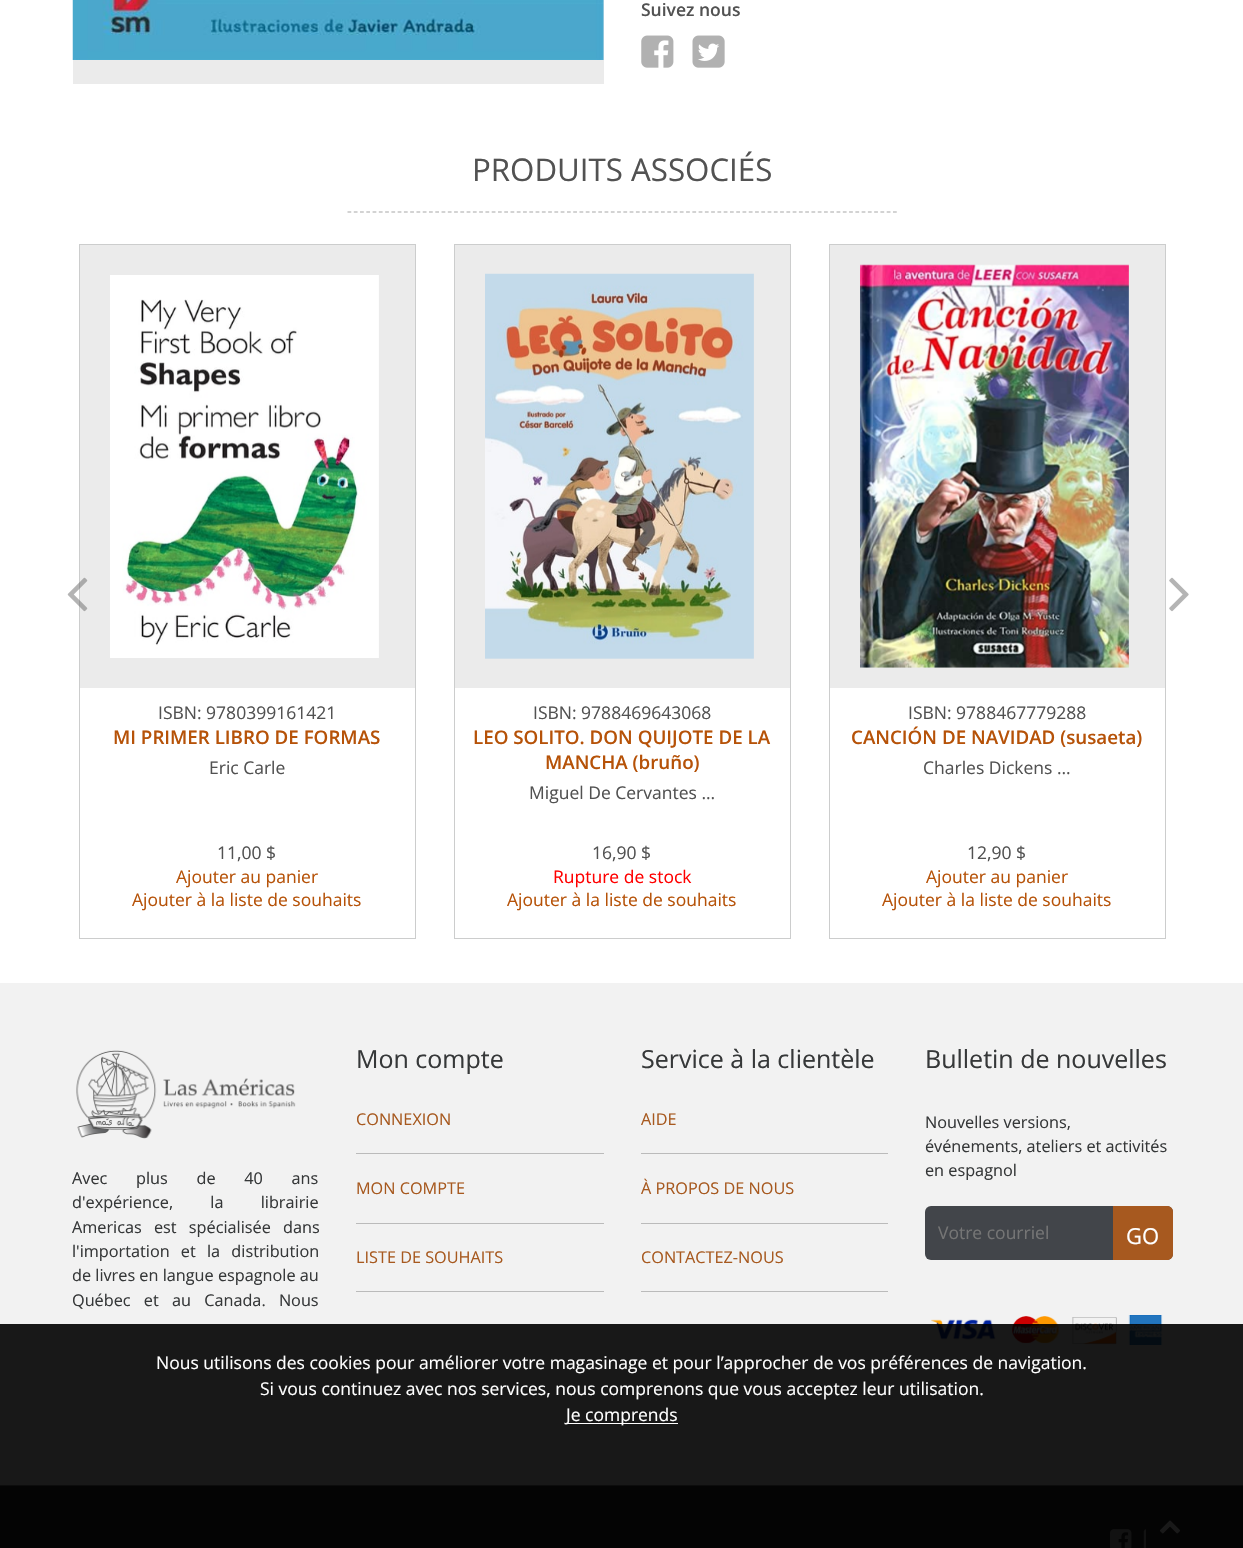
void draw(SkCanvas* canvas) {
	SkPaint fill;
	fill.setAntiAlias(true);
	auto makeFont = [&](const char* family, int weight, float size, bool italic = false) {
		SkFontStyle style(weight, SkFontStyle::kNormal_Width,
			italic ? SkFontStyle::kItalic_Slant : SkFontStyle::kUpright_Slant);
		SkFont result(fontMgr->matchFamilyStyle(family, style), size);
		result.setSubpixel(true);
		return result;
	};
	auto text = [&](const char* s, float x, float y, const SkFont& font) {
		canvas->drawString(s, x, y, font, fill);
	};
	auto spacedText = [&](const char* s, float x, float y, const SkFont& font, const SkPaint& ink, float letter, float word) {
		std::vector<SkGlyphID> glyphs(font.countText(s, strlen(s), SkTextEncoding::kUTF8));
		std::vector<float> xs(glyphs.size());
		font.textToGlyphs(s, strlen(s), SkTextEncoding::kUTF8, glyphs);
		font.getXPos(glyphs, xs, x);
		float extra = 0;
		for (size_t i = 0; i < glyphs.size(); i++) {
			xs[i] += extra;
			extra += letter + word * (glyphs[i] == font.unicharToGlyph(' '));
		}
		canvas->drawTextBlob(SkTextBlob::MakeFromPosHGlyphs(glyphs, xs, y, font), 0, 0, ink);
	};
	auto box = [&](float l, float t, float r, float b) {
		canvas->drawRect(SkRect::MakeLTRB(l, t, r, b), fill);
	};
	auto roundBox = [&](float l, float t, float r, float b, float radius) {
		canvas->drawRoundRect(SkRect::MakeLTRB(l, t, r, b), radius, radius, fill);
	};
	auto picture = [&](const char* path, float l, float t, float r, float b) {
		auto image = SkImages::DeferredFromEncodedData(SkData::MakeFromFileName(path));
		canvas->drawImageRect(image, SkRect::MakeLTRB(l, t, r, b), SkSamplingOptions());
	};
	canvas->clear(0xFFFFFFFF);
	fill.setColor(0xFFEBEBEB);
	box(73, 0, 604, 84);
	picture("image0.png", 72, 0, 604, 60);
	picture("image1.png", 641, 35, 674, 68);
	picture("image2.png", 692, 35, 725, 68);
	fill.setStyle(SkPaint::kStroke_Style);
	fill.setStrokeWidth(1.2f);
	fill.setColor(0xFFA7A7A7);
	fill.setPathEffect(SkDashPathEffect::Make({{3.75f, 2.52f}}, 0));
	canvas->drawPath(SkPathBuilder().moveTo(347.5f, 212).lineTo(897.5f, 212).detach(), fill);
	fill.setPathEffect(nullptr);
	fill.setStrokeWidth(1);
	fill.setColor(0xFFCCCDCD);
	canvas->drawRect(SkRect::MakeLTRB(79.5f, 244.5f, 415.5f, 938.5f), fill);
	fill.setStyle(SkPaint::kFill_Style);
	fill.setColor(0xFFEBEBEB);
	box(80, 245, 415, 688);
	picture("image3.png", 67, 577, 88, 612);
	picture("image4.png", 1169, 577, 1189, 612);
	picture("image5.png", 110, 275, 379, 658);
	fill.setStyle(SkPaint::kStroke_Style);
	fill.setColor(0xFFCCCDCD);
	canvas->drawRect(SkRect::MakeLTRB(454.5f, 244.5f, 790.5f, 938.5f), fill);
	fill.setStyle(SkPaint::kFill_Style);
	fill.setColor(0xFFEBEBEB);
	box(455, 245, 790, 688);
	picture("image6.png", 485, 273, 754, 659);
	fill.setStyle(SkPaint::kStroke_Style);
	fill.setColor(0xFFCCCDCD);
	canvas->drawRect(SkRect::MakeLTRB(829.5f, 244.5f, 1165.5f, 938.5f), fill);
	fill.setStyle(SkPaint::kFill_Style);
	fill.setColor(0xFFEBEBEB);
	box(830, 245, 1165, 688);
	picture("image7.png", 860, 264, 1129, 668);
	fill.setColor(0xFFF2F2F2);
	box(0, 983, 1243, 1485);
	picture("image8.png", 76, 1050, 296, 1139);
	fill.setColor(0xFFBBBBBB);
	box(356, 1153, 604, 1154);
	box(356, 1223, 604, 1224);
	box(356, 1291, 604, 1292);
	box(641, 1153, 888, 1154);
	box(641, 1223, 888, 1224);
	box(641, 1291, 888, 1292);
	box(641, 1360, 888, 1361);
	fill.setColor(0xFF42454A);
	roundBox(925, 1206, 1173, 1260, 6);
	fill.setColor(0xFFA7591F);
	canvas->drawPath(SkPathBuilder().moveTo(1113, 1206).lineTo(1167, 1206).cubicTo(1170.5f, 1206, 1173, 1208.5f, 1173, 1212).lineTo(1173, 1254).cubicTo(1173, 1257.5f, 1170.5f, 1260, 1167, 1260).lineTo(1113, 1260).close().detach(), fill);
	picture("image9.png", 931, 1315, 1163, 1345);
	fill.setColor(0xFF242424);
	box(0, 1486, 1243, 1548);
	fill.setColor(0xFF727272);
	box(0, 1485, 1243, 1486);
	picture("image10.png", 1110, 1529, 1132, 1548);
	picture("image11.png", 1143, 1529, 1146, 1548);
	fill.setColor(0xFF231F20);
	box(1146, 1504, 1194, 1548);
	picture("image12.png", 1159, 1520, 1181, 1534);
	fill.setColor(0xE6000000);
	box(0, 1324, 1243, 1548);
	fill.setColor(0xFFFFFFFF);
	box(566, 1423, 678, 1424);
	auto font1 = makeFont("Open Sans", 600, 17.5f);
	fill.setColor(0xFF525252);
	text("Suivez nous", 641, 16, font1);
	auto font2 = makeFont("Open Sans", 400, 31.25f);
	text("PRODUITS ASSOCIÉS", 472, 181, font2);
	auto font3 = makeFont("Open Sans", 400, 17.5f);
	text("ISBN: 9780399161421", 158, 719, font3);
	auto font4 = makeFont("Open Sans", 600, 18.75f);
	fill.setColor(0xFFB65208);
	text("MI PRIMER LIBRO DE FORMAS", 113, 744, font4);
	fill.setColor(0xFF525252);
	text("Eric Carle", 209, 774, font3);
	text("11,00 $", 217, 859, font3);
	fill.setColor(0xFFB65208);
	text("Ajouter au panier", 176, 883, font3);
	text("Ajouter à la liste de souhaits", 132, 906, font3);
	fill.setColor(0xFF525252);
	text("ISBN: 9788469643068", 533, 719, font3);
	fill.setColor(0xFFB65208);
	text("LEO SOLITO. DON QUIJOTE DE LA", 473, 744, font4);
	text("MANCHA (bruño)", 545, 769, font4);
	fill.setColor(0xFF525252);
	text("Miguel De Cervantes ...", 529, 799, font3);
	text("16,90 $", 592, 859, font3);
	fill.setColor(0xFFFF0000);
	text("Rupture de stock", 553, 883, font3);
	fill.setColor(0xFFB65208);
	text("Ajouter à la liste de souhaits", 507, 906, font3);
	fill.setColor(0xFF525252);
	text("ISBN: 9788467779288", 908, 719, font3);
	fill.setColor(0xFFB65208);
	text("CANCIÓN DE NAVIDAD (susaeta)", 851, 744, font4);
	fill.setColor(0xFF525252);
	text("Charles Dickens ...", 923, 774, font3);
	text("12,90 $", 967, 859, font3);
	fill.setColor(0xFFB65208);
	text("Ajouter au panier", 926, 883, font3);
	text("Ajouter à la liste de souhaits", 882, 906, font3);
	auto font5 = makeFont("Open Sans", 400, 16.25f);
	fill.setColor(0xFF363839);
	spacedText("Avec plus de 40 ans", 72, 1184, font5, fill, 0, 24.5f);
	spacedText("d'expérience, la librairie", 72, 1208, font5, fill, 0, 33);
	spacedText("Americas est spécialisée dans", 72, 1233, font5, fill, 0, 8);
	spacedText("l'importation et la distribution", 72, 1257, font5, fill, 0, 7);
	text("de livres en langue espagnole au", 72, 1281, font5);
	spacedText("Québec et au Canada. Nous", 72, 1306, font5, fill, 0, 9);
	auto font6 = makeFont("Open Sans", 400, 25);
	text("Mon compte", 356, 1068, font6);
	fill.setColor(0xFFA7591F);
	text("CONNEXION", 356, 1125, font5);
	text("MON COMPTE", 356, 1194, font5);
	text("LISTE DE SOUHAITS", 356, 1263, font5);
	fill.setColor(0xFF363839);
	text("Service à la clientèle", 641, 1068, font6);
	fill.setColor(0xFFA7591F);
	text("AIDE", 641, 1125, font5);
	text("À PROPOS DE NOUS", 641, 1194, font5);
	text("CONTACTEZ-NOUS", 641, 1263, font5);
	fill.setColor(0xFF363839);
	text("Bulletin de nouvelles", 925, 1068, font6);
	text("Nouvelles versions,", 925, 1128, font5);
	text("événements, ateliers et activités", 925, 1152, font5);
	text("en espagnol", 925, 1176, font5);
	fill.setColor(0xFF757575);
	text("Votre courriel", 938, 1239, font3);
	auto font7 = makeFont("Open Sans", 400, 22);
	fill.setColor(0xFFFFFFFF);
	text("GO", 1126, 1244, font7);
	text("Nous utilisons des cookies pour améliorer votre magasinage et pour l’approcher de vos préférences de navigation.", 156, 1369, font3);
	text("Si vous continuez avec nos services, nous comprenons que vous acceptez leur utilisation.", 260, 1395, font3);
	text("Je comprends", 566, 1421, font3);
}
